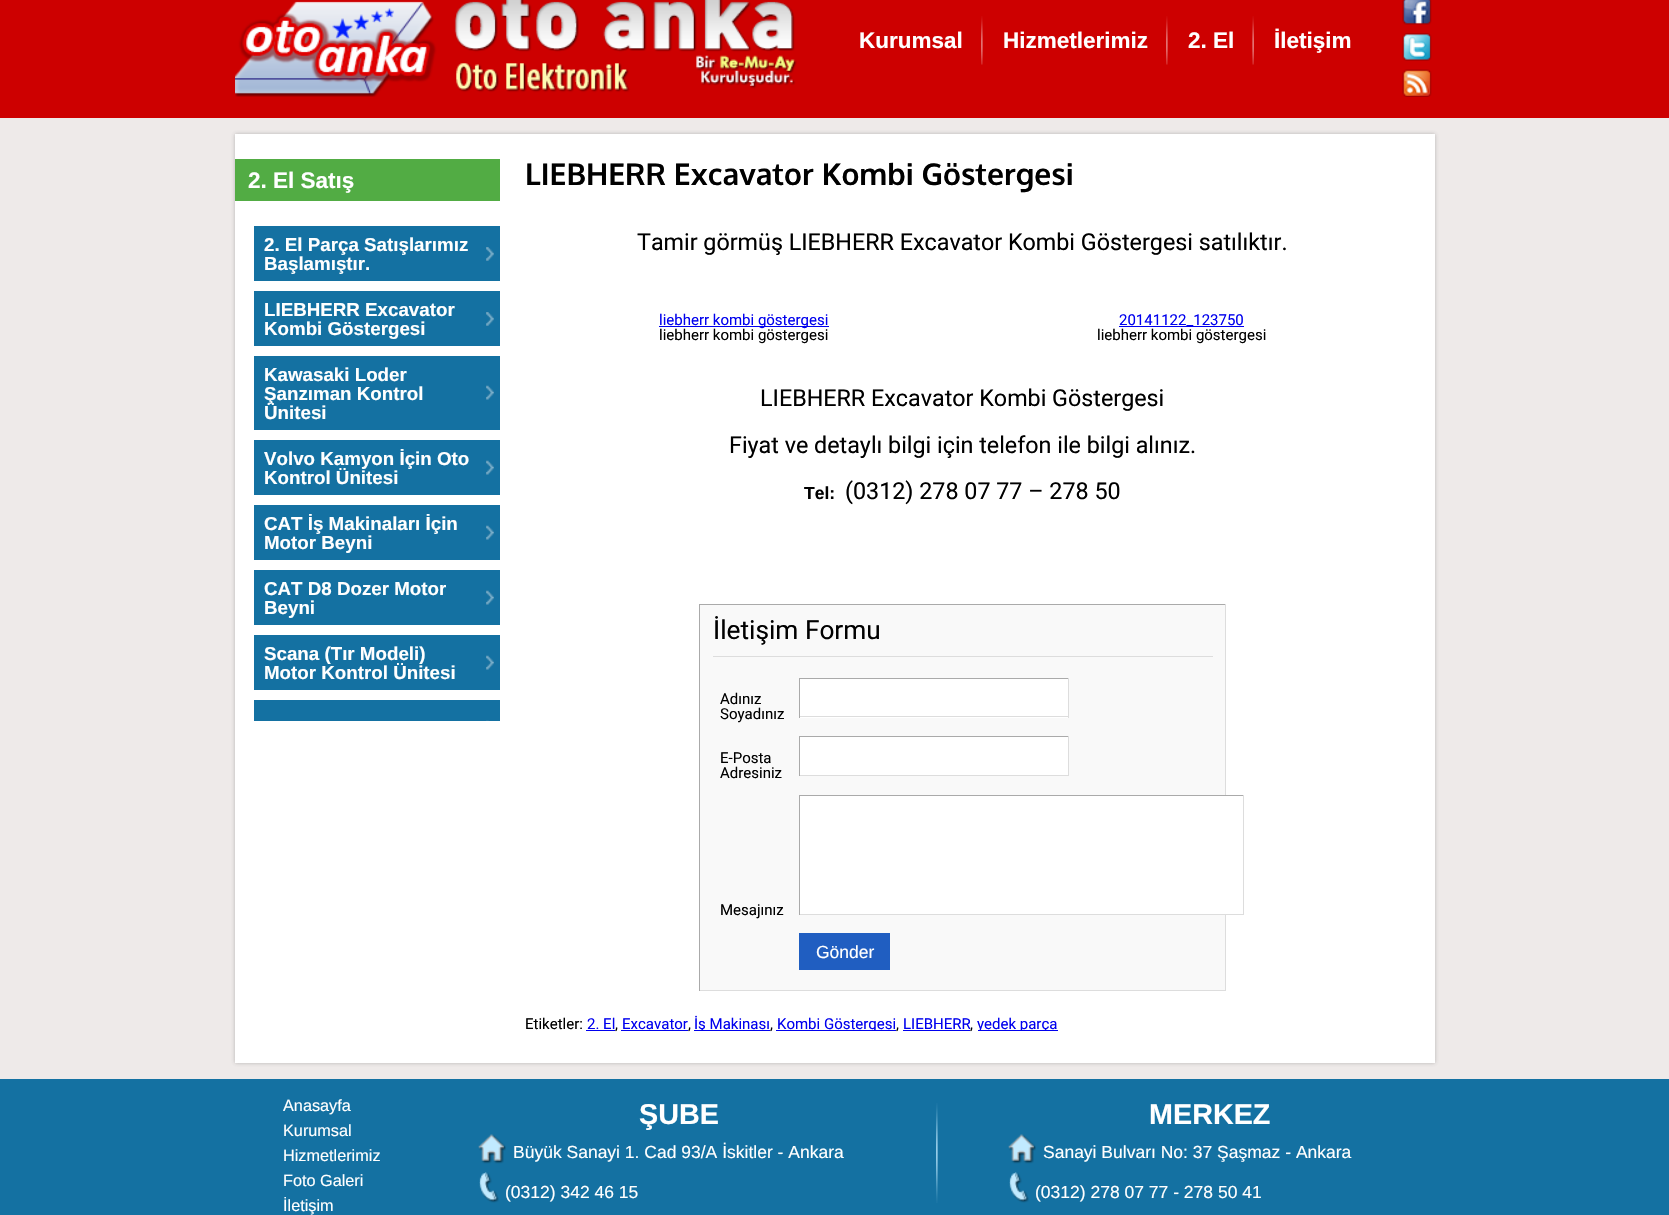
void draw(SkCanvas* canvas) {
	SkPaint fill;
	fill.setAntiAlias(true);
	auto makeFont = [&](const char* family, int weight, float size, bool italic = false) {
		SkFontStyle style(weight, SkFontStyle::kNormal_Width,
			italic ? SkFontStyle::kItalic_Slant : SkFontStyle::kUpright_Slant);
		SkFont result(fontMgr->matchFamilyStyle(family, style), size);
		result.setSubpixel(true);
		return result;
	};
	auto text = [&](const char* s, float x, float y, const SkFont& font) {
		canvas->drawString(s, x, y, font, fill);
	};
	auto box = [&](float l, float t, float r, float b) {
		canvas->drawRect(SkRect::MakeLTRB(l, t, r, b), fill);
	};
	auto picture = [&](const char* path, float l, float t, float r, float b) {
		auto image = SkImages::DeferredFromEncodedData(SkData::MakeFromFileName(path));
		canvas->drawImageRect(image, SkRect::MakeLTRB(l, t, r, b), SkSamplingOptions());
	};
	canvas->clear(0xFFEEEAE9);
	fill.setColor(0xFFCD0000);
	box(0, 0, 1669, 118);
	picture("image0.png", 235, 0, 797, 97);
	picture("image1.png", 981, 16, 983, 65);
	picture("image1.png", 1166, 16, 1168, 65);
	picture("image2.png", 1252, 16, 1254, 65);
	picture("image3.png", 1402, 0, 1432, 25);
	picture("image4.png", 1402, 33, 1432, 61);
	picture("image5.png", 1402, 69, 1432, 97);
	fill.setColor(0x4D323232);
	fill.setMaskFilter(SkMaskFilter::MakeBlur(kNormal_SkBlurStyle, 2));
	canvas->drawRect(SkRect::MakeLTRB(235, 134, 1435, 1063), fill);
	fill.setMaskFilter(nullptr);
	fill.setColor(0xFFFFFFFF);
	box(235, 134, 1435, 1063);
	fill.setColor(0xFF52AC44);
	box(235, 159, 500, 201);
	fill.setColor(0xFF1471A2);
	box(254, 226, 500, 281);
	picture("image6.png", 486, 247, 494, 261);
	box(254, 291, 500, 346);
	picture("image6.png", 486, 312, 494, 326);
	box(254, 356, 500, 430);
	picture("image7.png", 486, 385, 494, 400);
	box(254, 440, 500, 495);
	picture("image7.png", 486, 460, 494, 475);
	box(254, 505, 500, 560);
	picture("image7.png", 486, 525, 494, 540);
	box(254, 570, 500, 625);
	picture("image7.png", 486, 590, 494, 605);
	box(254, 635, 500, 690);
	picture("image7.png", 486, 655, 494, 670);
	box(254, 700, 500, 721);
	picture("image8.png", 486, 720, 489, 721);
	fill.setColor(0xFF0000EE);
	box(659, 326, 829, 327);
	box(1119, 326, 1244, 327);
	fill.setColor(0xFFF9F9F9);
	box(700, 605, 1225, 990);
	fill.setColor(0xFFAAAAAA);
	box(699, 604, 1226, 605);
	fill.setColor(0xFFDDDDDD);
	box(1225, 604, 1226, 991);
	box(699, 990, 1226, 991);
	fill.setColor(0xFFAAAAAA);
	box(699, 604, 700, 991);
	fill.setColor(0xFFDDDDDD);
	box(713, 656, 1213, 657);
	fill.setColor(0xFFFFFFFF);
	box(800, 679, 1068, 718);
	fill.setColor(0xFFAAAAAA);
	box(799, 678, 1069, 679);
	fill.setColor(0xFFDDDDDD);
	box(1068, 678, 1069, 718);
	box(799, 716, 1069, 717);
	fill.setColor(0xFFAAAAAA);
	box(799, 678, 800, 718);
	fill.setColor(0xFFFFFFFF);
	box(800, 737, 1068, 775);
	fill.setColor(0xFFAAAAAA);
	box(799, 736, 1069, 737);
	fill.setColor(0xFFDDDDDD);
	box(1068, 736, 1069, 776);
	box(799, 775, 1069, 776);
	fill.setColor(0xFFAAAAAA);
	box(799, 736, 800, 776);
	fill.setColor(0xFFFFFFFF);
	box(800, 796, 1226, 914);
	fill.setColor(0xFFAAAAAA);
	box(799, 795, 1244, 796);
	fill.setColor(0xFFDDDDDD);
	box(1243, 795, 1244, 915);
	box(799, 914, 1244, 915);
	fill.setColor(0xFFAAAAAA);
	box(799, 795, 800, 915);
	fill.setColor(0xFF205EC1);
	box(799, 933, 890, 970);
	fill.setColor(0xFF0000EE);
	box(586, 1030, 615, 1031);
	box(621, 1030, 688, 1031);
	box(694, 1030, 770, 1031);
	box(776, 1030, 896, 1031);
	box(903, 1030, 970, 1031);
	box(978, 1030, 1058, 1031);
	fill.setColor(0xFF1471A2);
	box(0, 1079, 1669, 1215);
	picture("image9.png", 478, 1134, 506, 1164);
	picture("image10.png", 479, 1172, 499, 1203);
	picture("image11.png", 936, 1103, 938, 1203);
	picture("image12.png", 1008, 1134, 1036, 1164);
	picture("image13.png", 1009, 1172, 1029, 1203);
	auto font1 = makeFont("Liberation Sans", 700, 22.5f);
	fill.setColor(0xFFFFFFFF);
	text("Kurumsal", 859, 48, font1);
	text("Hizmetlerimiz", 1003, 48, font1);
	text("2. El", 1188, 48, font1);
	text("İletişim", 1274, 48, font1);
	text("2. El Satış", 248, 188, font1);
	auto font2 = makeFont("Liberation Sans", 700, 18.75f);
	text("2. El Parça Satışlarımız", 264, 251, font2);
	text("Başlamıştır.", 264, 270, font2);
	text("LIEBHERR Excavator", 264, 316, font2);
	text("Kombi Göstergesi", 264, 335, font2);
	text("Kawasaki Loder", 264, 381, font2);
	text("Şanzıman Kontrol", 264, 400, font2);
	text("Ünitesi", 264, 419, font2);
	text("Volvo Kamyon İçin Oto", 264, 465, font2);
	text("Kontrol Ünitesi", 264, 484, font2);
	text("CAT İş Makinaları İçin", 264, 530, font2);
	text("Motor Beyni", 264, 549, font2);
	text("CAT D8 Dozer Motor", 264, 595, font2);
	text("Beyni", 264, 614, font2);
	text("Scana (Tır Modeli)", 264, 660, font2);
	text("Motor Kontrol Ünitesi", 264, 679, font2);
	auto font3 = makeFont("Oxygen", 700, 30);
	fill.setColor(0xFF000000);
	text("LIEBHERR Excavator Kombi Göstergesi", 525, 185, font3);
	auto font4 = makeFont("Roboto", 400, 23.3f);
	text("Tamir görmüş LIEBHERR Excavator Kombi Göstergesi satılıktır.", 637, 250, font4);
	auto font5 = makeFont("Roboto", 400, 15);
	fill.setColor(0xFF0000EE);
	text("liebherr kombi göstergesi", 659, 325, font5);
	fill.setColor(0xFF000000);
	text("liebherr kombi göstergesi", 659, 340, font5);
	fill.setColor(0xFF0000EE);
	text("20141122_123750", 1119, 325, font5);
	fill.setColor(0xFF000000);
	text("liebherr kombi göstergesi", 1097, 340, font5);
	text("LIEBHERR Excavator Kombi Göstergesi", 760, 406, font4);
	text("Fiyat ve detaylı bilgi için telefon ile bilgi alınız.", 729, 453, font4);
	auto font6 = makeFont("Liberation Sans", 700, 17.5f);
	text("Tel:", 804, 499, font6);
	text("(0312) 278 07 77 – 278 50", 845, 499, font4);
	auto font7 = makeFont("Roboto", 400, 26.25f);
	text("İletişim Formu", 713, 639, font7);
	text("Adınız", 720, 704, font5);
	text("Soyadınız", 720, 719, font5);
	text("E-Posta", 720, 763, font5);
	text("Adresiniz", 720, 778, font5);
	text("Mesajınız", 720, 915, font5);
	auto font8 = makeFont("Liberation Sans", 400, 17.5f);
	fill.setColor(0xFFFFFFFF);
	text("Gönder", 816, 958, font8);
	fill.setColor(0xFF000000);
	text("Etiketler:", 525, 1029, font5);
	fill.setColor(0xFF0000EE);
	text("2. El", 587, 1029, font5);
	fill.setColor(0xFF000000);
	text(",", 615, 1029, font5);
	fill.setColor(0xFF0000EE);
	text("Excavator", 622, 1029, font5);
	fill.setColor(0xFF000000);
	text(",", 688, 1029, font5);
	canvas->save();
	canvas->clipRect(SkRect::MakeLTRB(525, 159, 1406, 1031));
	fill.setColor(0xFF0000EE);
	text("İş Makinası", 694, 1029, font5);
	canvas->restore();
	fill.setColor(0xFF000000);
	text(",", 770, 1029, font5);
	canvas->save();
	canvas->clipRect(SkRect::MakeLTRB(525, 159, 1406, 1031));
	fill.setColor(0xFF0000EE);
	text("Kombi Göstergesi", 777, 1029, font5);
	canvas->restore();
	fill.setColor(0xFF000000);
	text(",", 896, 1029, font5);
	fill.setColor(0xFF0000EE);
	text("LIEBHERR", 903, 1029, font5);
	fill.setColor(0xFF000000);
	text(",", 970, 1029, font5);
	canvas->save();
	canvas->clipRect(SkRect::MakeLTRB(525, 159, 1406, 1031));
	fill.setColor(0xFF0000EE);
	text("yedek parça", 977, 1029, font5);
	canvas->restore();
	auto font9 = makeFont("Liberation Sans", 400, 16.25f);
	fill.setColor(0xFFFFFFFF);
	text("Anasayfa", 283, 1111, font9);
	text("Kurumsal", 283, 1136, font9);
	text("Hizmetlerimiz", 283, 1161, font9);
	text("Foto Galeri", 283, 1186, font9);
	text("İletişim", 283, 1211, font9);
	auto font10 = makeFont("Liberation Sans", 700, 28.75f);
	text("ŞUBE", 639, 1124, font10);
	text("Büyük Sanayi 1. Cad 93/A İskitler - Ankara", 513, 1158, font8);
	text("(0312) 342 46 15", 505, 1198, font8);
	text("MERKEZ", 1149, 1124, font10);
	text("Sanayi Bulvarı No: 37 Şaşmaz - Ankara", 1043, 1158, font8);
	text("(0312) 278 07 77 - 278 50 41", 1035, 1198, font8);
}
